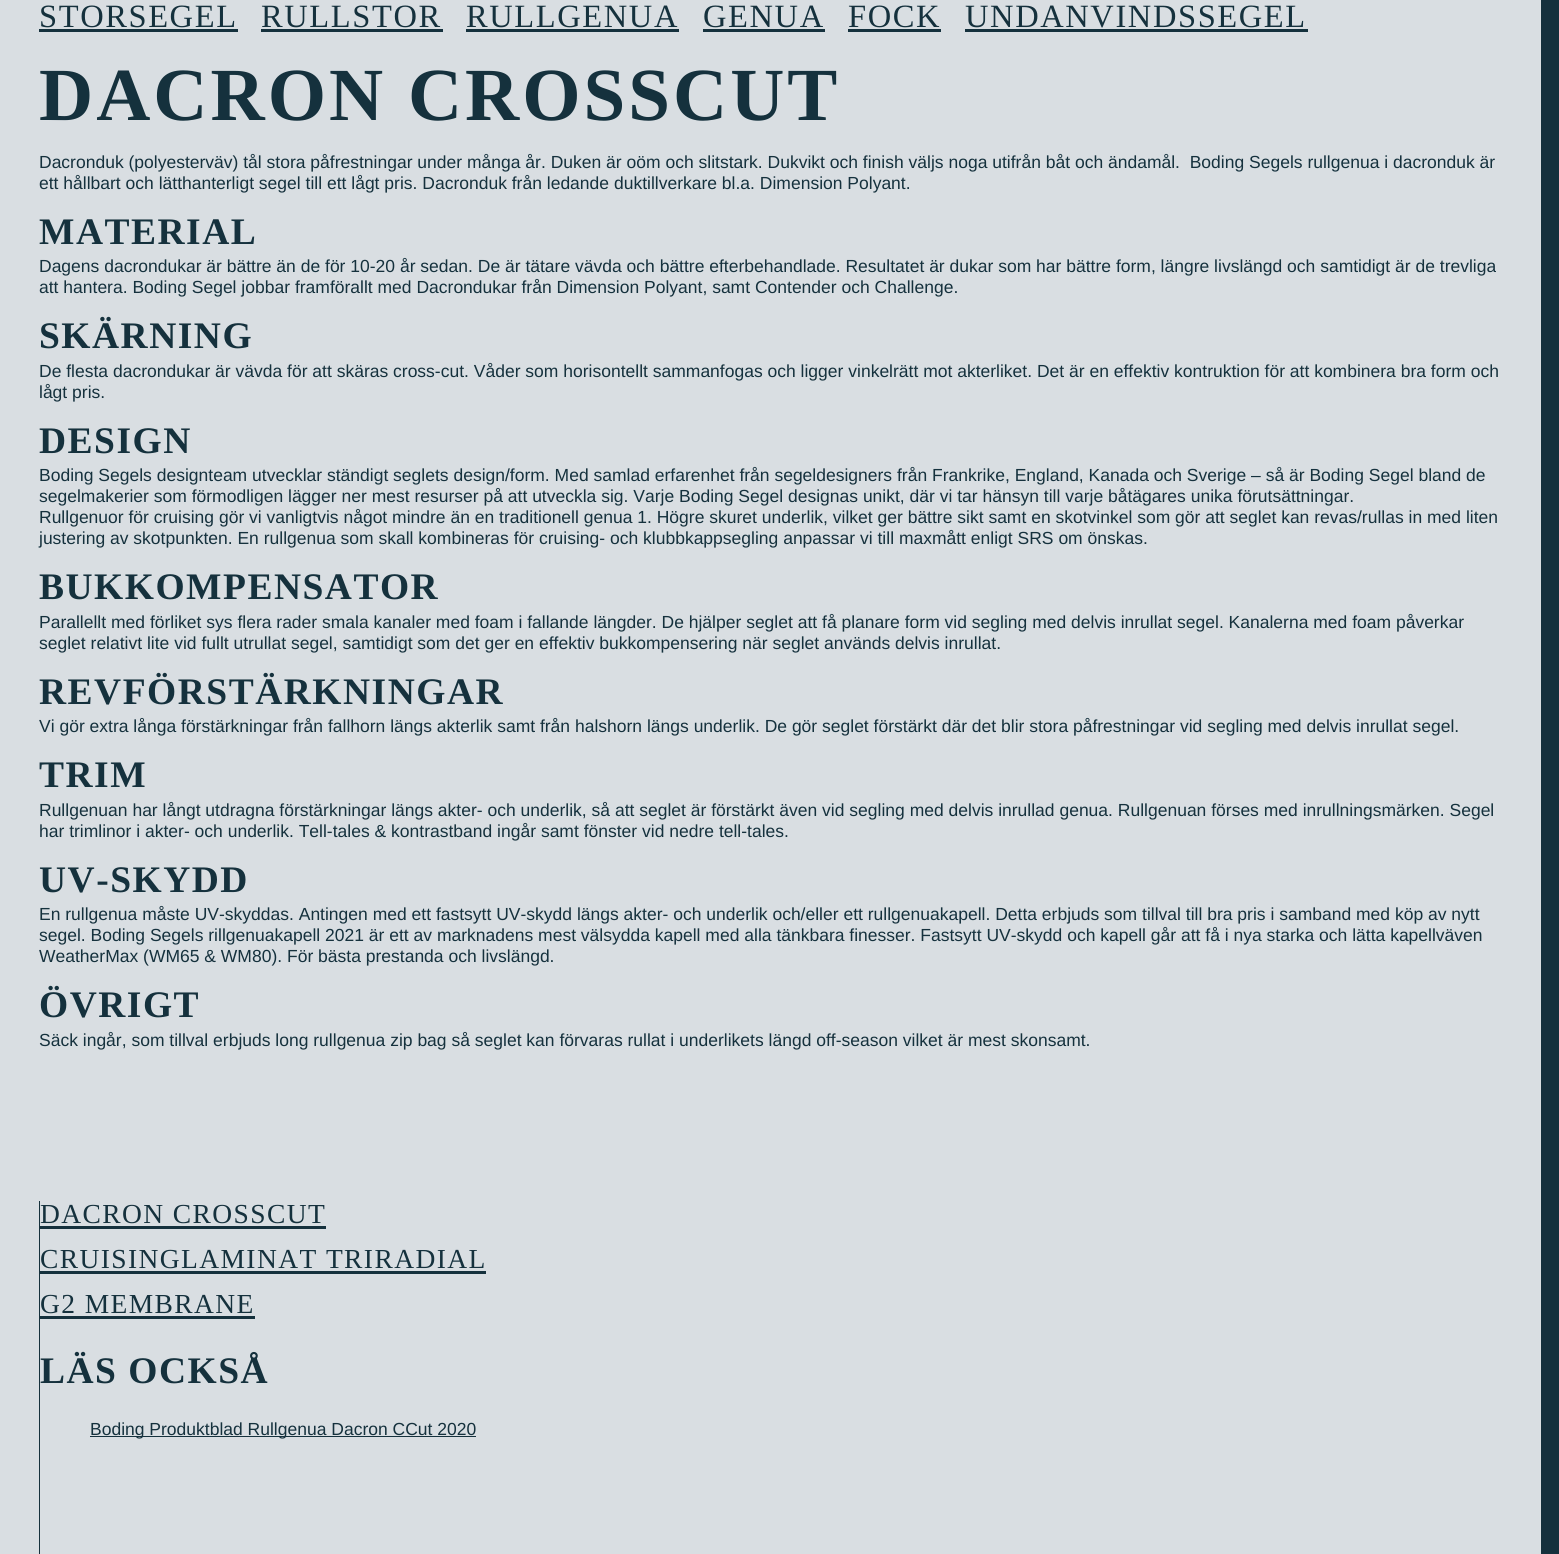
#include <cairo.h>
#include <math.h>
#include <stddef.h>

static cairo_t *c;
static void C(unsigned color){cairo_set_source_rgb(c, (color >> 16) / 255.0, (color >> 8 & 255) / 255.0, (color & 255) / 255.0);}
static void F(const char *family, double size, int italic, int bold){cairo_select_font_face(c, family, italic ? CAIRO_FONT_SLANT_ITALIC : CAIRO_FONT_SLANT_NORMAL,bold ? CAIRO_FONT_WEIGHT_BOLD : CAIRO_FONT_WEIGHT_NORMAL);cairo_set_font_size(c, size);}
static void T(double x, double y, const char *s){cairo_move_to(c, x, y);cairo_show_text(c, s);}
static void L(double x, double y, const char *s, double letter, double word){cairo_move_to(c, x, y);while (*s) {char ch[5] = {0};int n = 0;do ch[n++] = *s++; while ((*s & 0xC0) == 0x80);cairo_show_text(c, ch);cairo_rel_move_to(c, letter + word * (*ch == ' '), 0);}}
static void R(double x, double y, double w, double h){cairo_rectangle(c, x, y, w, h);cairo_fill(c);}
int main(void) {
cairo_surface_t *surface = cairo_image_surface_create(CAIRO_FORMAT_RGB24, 1559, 1554);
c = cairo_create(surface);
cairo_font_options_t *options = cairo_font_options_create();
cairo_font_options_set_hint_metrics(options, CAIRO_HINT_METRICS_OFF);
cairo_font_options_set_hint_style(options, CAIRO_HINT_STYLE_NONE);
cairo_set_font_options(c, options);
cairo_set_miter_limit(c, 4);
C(0x15303d);
cairo_paint(c);
C(0xd9dee2);
R(0,0,1541,1554);
F("Liberation Serif",32.5,0,0);
C(0x15313d);
L(39,27,"STORSEGEL",1.6,0);
R(39,29,199,3);
L(261,27,"RULLSTOR",1.6,0);
R(261,29,182,3);
L(466,27,"RULLGENUA",1.6,0);
R(466,29,213,3);
L(703,27,"GENUA",1.6,0);
R(703,29,122,3);
L(848,27,"FOCK",1.6,0);
R(848,29,93,3);
L(965,27,"UNDANVINDSSEGEL",1.6,0);
R(965,29,343,3);
F("Liberation Serif",75,0,1);
L(39,120,"DACRON CROSSCUT",3,0);
F("Liberation Sans",17.5,0,0);
T(39,168,"Dacronduk (polyesterväv) tål stora påfrestningar under många år. Duken är oöm och slitstark. Dukvikt och finish väljs noga utifrån båt och ändamål.  Boding Segels rullgenua i dacronduk är");
T(39,189,"ett hållbart och lätthanterligt segel till ett lågt pris. Dacronduk från ledande duktillverkare bl.a. Dimension Polyant.");
F("Liberation Serif",37.5,0,1);
L(39,244,"MATERIAL",1.5,0);
F("Liberation Sans",17.5,0,0);
T(39,272,"Dagens dacrondukar är bättre än de för 10-20 år sedan. De är tätare vävda och bättre efterbehandlade. Resultatet är dukar som har bättre form, längre livslängd och samtidigt är de trevliga");
T(39,293,"att hantera. Boding Segel jobbar framförallt med Dacrondukar från Dimension Polyant, samt Contender och Challenge.");
F("Liberation Serif",37.5,0,1);
L(39,348,"SKÄRNING",1.5,0);
F("Liberation Sans",17.5,0,0);
T(39,377,"De flesta dacrondukar är vävda för att skäras cross-cut. Våder som horisontellt sammanfogas och ligger vinkelrätt mot akterliket. Det är en effektiv kontruktion för att kombinera bra form och");
T(39,398,"lågt pris.");
F("Liberation Serif",37.5,0,1);
L(39,453,"DESIGN",1.5,0);
F("Liberation Sans",17.5,0,0);
T(39,481,"Boding Segels designteam utvecklar ständigt seglets design/form. Med samlad erfarenhet från segeldesigners från Frankrike, England, Kanada och Sverige – så är Boding Segel bland de");
T(39,502,"segelmakerier som förmodligen lägger ner mest resurser på att utveckla sig. Varje Boding Segel designas unikt, där vi tar hänsyn till varje båtägares unika förutsättningar.");
T(39,523,"Rullgenuor för cruising gör vi vanligtvis något mindre än en traditionell genua 1. Högre skuret underlik, vilket ger bättre sikt samt en skotvinkel som gör att seglet kan revas/rullas in med liten");
T(39,544,"justering av skotpunkten. En rullgenua som skall kombineras för cruising- och klubbkappsegling anpassar vi till maxmått enligt SRS om önskas.");
F("Liberation Serif",37.5,0,1);
L(39,599,"BUKKOMPENSATOR",1.5,0);
F("Liberation Sans",17.5,0,0);
T(39,628,"Parallellt med förliket sys flera rader smala kanaler med foam i fallande längder. De hjälper seglet att få planare form vid segling med delvis inrullat segel. Kanalerna med foam påverkar");
T(39,649,"seglet relativt lite vid fullt utrullat segel, samtidigt som det ger en effektiv bukkompensering när seglet används delvis inrullat.");
F("Liberation Serif",37.5,0,1);
L(39,704,"REVFÖRSTÄRKNINGAR",1.5,0);
F("Liberation Sans",17.5,0,0);
T(39,732,"Vi gör extra långa förstärkningar från fallhorn längs akterlik samt från halshorn längs underlik. De gör seglet förstärkt där det blir stora påfrestningar vid segling med delvis inrullat segel.");
F("Liberation Serif",37.5,0,1);
L(39,787,"TRIM",1.5,0);
F("Liberation Sans",17.5,0,0);
T(39,816,"Rullgenuan har långt utdragna förstärkningar längs akter- och underlik, så att seglet är förstärkt även vid segling med delvis inrullad genua. Rullgenuan förses med inrullningsmärken. Segel");
T(39,837,"har trimlinor i akter- och underlik. Tell-tales & kontrastband ingår samt fönster vid nedre tell-tales.");
F("Liberation Serif",37.5,0,1);
L(39,892,"UV-SKYDD",1.5,0);
F("Liberation Sans",17.5,0,0);
T(39,920,"En rullgenua måste UV-skyddas. Antingen med ett fastsytt UV-skydd längs akter- och underlik och/eller ett rullgenuakapell. Detta erbjuds som tillval till bra pris i samband med köp av nytt");
T(39,941,"segel. Boding Segels rillgenuakapell 2021 är ett av marknadens mest välsydda kapell med alla tänkbara finesser. Fastsytt UV-skydd och kapell går att få i nya starka och lätta kapellväven");
T(39,962,"WeatherMax (WM65 & WM80). För bästa prestanda och livslängd.");
F("Liberation Serif",37.5,0,1);
L(39,1017,"ÖVRIGT",1.5,0);
F("Liberation Sans",17.5,0,0);
T(39,1046,"Säck ingår, som tillval erbjuds long rullgenua zip bag så seglet kan förvaras rullat i underlikets längd off-season vilket är mest skonsamt.");
C(0x16313c);
R(39,1201,1,353);
F("Liberation Serif",27.5,0,0);
C(0x15313d);
L(40,1223,"DACRON CROSSCUT",1.4,0);
R(40,1226,286,3);
L(40,1268,"CRUISINGLAMINAT TRIRADIAL",1.4,0);
R(40,1271,446,3);
L(40,1313,"G2 MEMBRANE",1.4,0);
R(40,1316,215,3);
F("Liberation Serif",37.5,0,1);
L(40,1383,"LÄS OCKSÅ",1.5,0);
R(90,1436,386,1);
F("Liberation Sans",17.5,0,0);
T(90,1435,"Boding Produktblad Rullgenua Dacron CCut 2020");
cairo_surface_write_to_png(surface, "o.png");
cairo_font_options_destroy(options);
cairo_destroy(c);
cairo_surface_destroy(surface);
return 0;
}
